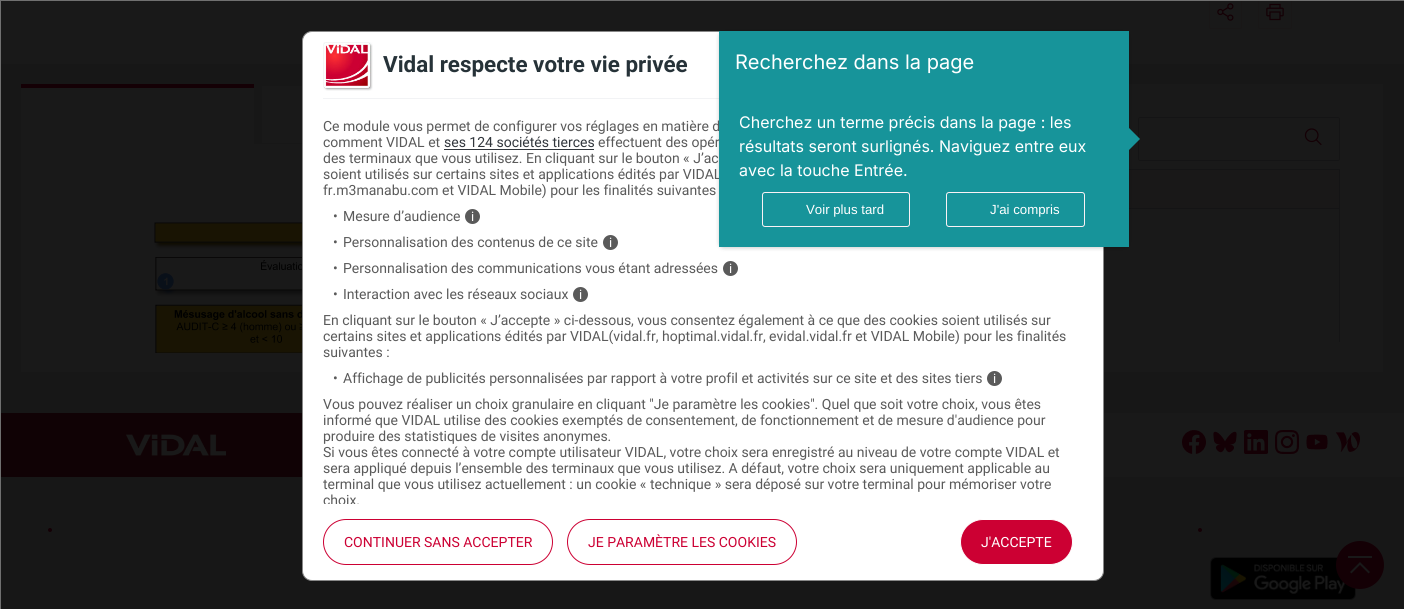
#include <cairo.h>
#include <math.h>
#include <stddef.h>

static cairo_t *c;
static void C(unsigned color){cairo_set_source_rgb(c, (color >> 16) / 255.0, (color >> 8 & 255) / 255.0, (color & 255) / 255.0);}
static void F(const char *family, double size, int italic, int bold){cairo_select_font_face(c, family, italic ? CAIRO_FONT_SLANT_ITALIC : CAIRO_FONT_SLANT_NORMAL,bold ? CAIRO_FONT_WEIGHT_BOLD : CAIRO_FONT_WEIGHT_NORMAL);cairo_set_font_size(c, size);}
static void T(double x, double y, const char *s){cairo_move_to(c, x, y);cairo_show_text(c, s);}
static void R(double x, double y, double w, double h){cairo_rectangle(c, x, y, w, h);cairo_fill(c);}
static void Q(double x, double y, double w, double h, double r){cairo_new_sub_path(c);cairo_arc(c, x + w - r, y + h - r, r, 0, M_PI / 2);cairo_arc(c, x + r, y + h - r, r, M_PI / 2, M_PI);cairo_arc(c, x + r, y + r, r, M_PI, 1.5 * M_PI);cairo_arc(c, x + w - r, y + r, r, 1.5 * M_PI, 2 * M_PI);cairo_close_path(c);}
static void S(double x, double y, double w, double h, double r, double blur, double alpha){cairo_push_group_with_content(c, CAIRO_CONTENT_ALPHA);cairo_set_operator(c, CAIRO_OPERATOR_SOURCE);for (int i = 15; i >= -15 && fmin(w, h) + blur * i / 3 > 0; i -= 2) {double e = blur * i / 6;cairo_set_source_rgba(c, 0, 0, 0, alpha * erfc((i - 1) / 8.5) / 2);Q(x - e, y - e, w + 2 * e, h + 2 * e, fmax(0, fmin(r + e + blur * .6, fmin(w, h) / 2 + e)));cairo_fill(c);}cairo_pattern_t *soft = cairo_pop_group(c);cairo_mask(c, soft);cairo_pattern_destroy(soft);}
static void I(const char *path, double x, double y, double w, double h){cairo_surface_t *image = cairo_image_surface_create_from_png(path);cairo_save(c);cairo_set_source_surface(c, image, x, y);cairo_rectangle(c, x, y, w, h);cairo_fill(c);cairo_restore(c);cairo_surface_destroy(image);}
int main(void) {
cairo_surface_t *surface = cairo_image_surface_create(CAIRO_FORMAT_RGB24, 1404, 609);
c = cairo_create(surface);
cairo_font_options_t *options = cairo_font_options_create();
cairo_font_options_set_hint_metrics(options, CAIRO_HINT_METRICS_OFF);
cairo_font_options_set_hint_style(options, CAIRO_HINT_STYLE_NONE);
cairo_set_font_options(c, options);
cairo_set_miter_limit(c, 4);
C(0xececee);
cairo_paint(c);
C(0xffffff);
R(1,1,1403,63);
Q(1209.5,-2.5,32,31,1.5);
C(0xfae6eb);
cairo_set_line_width(c,1);
cairo_stroke(c);
I("1.png",1217,3,17,18);
Q(1258.5,-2.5,33,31,1.5);
cairo_stroke(c);
I("2.png",1266,3,18,18);
C(0xffffff);
R(21,88,233,56);
C(0xcc0033);
R(21,84,233,4);
C(0xffffff);
R(262,86,40,57);
C(0xe9eaed);
R(262,143,40,1);
C(0xffffff);
R(21,144,281,228);
I("3.png",154,222,148,131);
R(1104,84,279,288);
Q(1138.5,117.5,201,43,1.5);
C(0xceced4);
cairo_stroke(c);
I("4.png",1304,128,18,18);
C(0xfaf2f5);
R(1129,170,210,38);
cairo_rectangle(c,780.5,169.5,559,39);
C(0xceced4);
cairo_stroke(c);
R(1339,209,1,133);
C(0xffffff);
R(1104,413,300,64);
C(0xa81830);
R(1,413,301,64);
I("6.png",126,434,100,22);
I("7.png",1182,430,24,24);
I("8.png",1213,431,24,22);
I("9.png",1244,430,24,24);
I("10.png",1275,430,24,24);
I("11.png",1306,434,22,16);
I("12.png",1336,432,24,20);
C(0xcc0033);
cairo_arc(c,50,530,2,0,2 * M_PI);
cairo_fill(c);
cairo_arc(c,1200,530,2,0,2 * M_PI);
cairo_fill(c);
I("13.png",1210,557,146,43);
cairo_arc(c,1360,565,24,0,2 * M_PI);
cairo_fill(c);
I("14.png",1348,556,24,18);
cairo_set_source_rgba(c,0,0,0,0.9);
cairo_rectangle(c,.5,.5,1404,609);
cairo_fill_preserve(c);
C(0x707070);
cairo_stroke(c);
C(0xffffff);
Q(302.5,31.5,801,549,9.5);
cairo_fill_preserve(c);
C(0x888888);
cairo_stroke(c);
C(0xf2f3f5);
R(323,98,396,1);
C(0x000000);
S(719,32,410,216,5,2,.2);
C(0x17949a);
cairo_new_path(c);
cairo_move_to(c,1128.5,127.5);
cairo_line_to(c,1140,139);
cairo_line_to(c,1128.5,150.5);
cairo_line_to(c,1117,139);
cairo_close_path(c);
cairo_fill(c);
F("Roboto",14,0,0);
C(0x5a5a5a);
T(323,131,"Ce module vous permet de configurer vos réglages en matière d");
T(323,179,"soient utilisés sur certains sites et applications édités par VIDAL");
C(0x17949a);
R(719,31,410,216);
F("Inter",20,0,0);
C(0xffffff);
T(735,69,"Recherchez dans la page");
F("Inter",16,0,0);
T(739,128,"Cherchez un terme précis dans la page : les");
T(739,152,"résultats seront surlignés. Naviguez entre eux");
T(739,176,"avec la touche Entrée.");
Q(762.5,192.5,147,34,2.5);
C(0xfaf2f5);
cairo_stroke(c);
F("Liberation Sans",13.25,0,0);
C(0xffffff);
T(806,214,"Voir plus tard");
Q(946.5,192.5,138,34,2.5);
C(0xfaf2f5);
cairo_stroke(c);
C(0xffffff);
T(990,214,"J'ai compris");
I("5.png",323,42,50,49);
F("Roboto",22.4,0,1);
C(0x263238);
T(383,72,"Vidal respecte votre vie privée");
F("Roboto",14,0,0);
C(0x5a5a5a);
T(323,147,"comment VIDAL et");
C(0x31363c);
T(444,147,"ses 124 sociétés tierces");
R(444,149,150,1);
C(0x5a5a5a);
T(598,147,"effectuent des opér");
T(323,163,"des terminaux que vous utilisez. En cliquant sur le bouton « J’ac");
T(323,195,"fr.m3manabu.com et VIDAL Mobile) pour les finalités suivantes");
T(333,221,"•");
T(343,221,"Mesure d’audience");
cairo_new_path(c);
cairo_arc(c,472.5,216.5,7.5,0,2 * M_PI);
cairo_fill(c);
F("Roboto",13,0,0);
C(0xffffff);
T(471,221,"i");
F("Roboto",14,0,0);
C(0x5a5a5a);
T(333,247,"•");
T(343,247,"Personnalisation des contenus de ce site");
cairo_new_path(c);
cairo_arc(c,610.5,242.5,7.5,0,2 * M_PI);
cairo_fill(c);
F("Roboto",13,0,0);
C(0xffffff);
T(609,247,"i");
F("Roboto",14,0,0);
C(0x5a5a5a);
T(333,273,"•");
T(343,273,"Personnalisation des communications vous étant adressées");
cairo_new_path(c);
cairo_arc(c,730.5,268.5,7.5,0,2 * M_PI);
cairo_fill(c);
F("Roboto",13,0,0);
C(0xffffff);
T(729,273,"i");
F("Roboto",14,0,0);
C(0x5a5a5a);
T(333,299,"•");
T(343,299,"Interaction avec les réseaux sociaux");
cairo_new_path(c);
cairo_arc(c,580.5,294.5,7.5,0,2 * M_PI);
cairo_fill(c);
F("Roboto",13,0,0);
C(0xffffff);
T(579,299,"i");
F("Roboto",14,0,0);
C(0x5a5a5a);
T(323,325,"En cliquant sur le bouton « J’accepte » ci-dessous, vous consentez également à ce que des cookies soient utilisés sur");
T(323,341,"certains sites et applications édités par VIDAL(vidal.fr, hoptimal.vidal.fr, evidal.vidal.fr et VIDAL Mobile) pour les finalités");
T(323,357,"suivantes :");
T(333,383,"•");
T(343,383,"Affichage de publicités personnalisées par rapport à votre profil et activités sur ce site et des sites tiers");
cairo_new_path(c);
cairo_arc(c,994.5,378.5,7.5,0,2 * M_PI);
cairo_fill(c);
F("Roboto",13,0,0);
C(0xffffff);
T(993,383,"i");
F("Roboto",14,0,0);
C(0x5a5a5a);
T(323,409,"Vous pouvez réaliser un choix granulaire en cliquant \"Je paramètre les cookies\". Quel que soit votre choix, vous êtes");
T(323,425,"informé que VIDAL utilise des cookies exemptés de consentement, de fonctionnement et de mesure d'audience pour");
T(323,441,"produire des statistiques de visites anonymes.");
T(323,457,"Si vous êtes connecté à votre compte utilisateur VIDAL, votre choix sera enregistré au niveau de votre compte VIDAL et");
T(323,473,"sera appliqué depuis l’ensemble des terminaux que vous utilisez. A défaut, votre choix sera uniquement applicable au");
T(323,489,"terminal que vous utilisez actuellement : un cookie « technique » sera déposé sur votre terminal pour mémoriser votre");
cairo_save(c);
cairo_rectangle(c,303,32,800,472);
cairo_clip(c);
T(323,505,"choix.");
cairo_restore(c);
Q(323.5,519.5,229,45,22.5);
C(0xcc0033);
cairo_stroke(c);
T(344,547,"CONTINUER SANS ACCEPTER");
Q(567.5,519.5,229,45,22.5);
cairo_stroke(c);
T(588,547,"JE PARAMÈTRE LES COOKIES");
Q(960.5,519.5,112,45,22.5);
cairo_fill_preserve(c);
C(0xffffff);
cairo_stroke(c);
T(981,547,"J'ACCEPTE");
cairo_surface_write_to_png(surface, "o.png");
cairo_font_options_destroy(options);
cairo_destroy(c);
cairo_surface_destroy(surface);
return 0;
}
